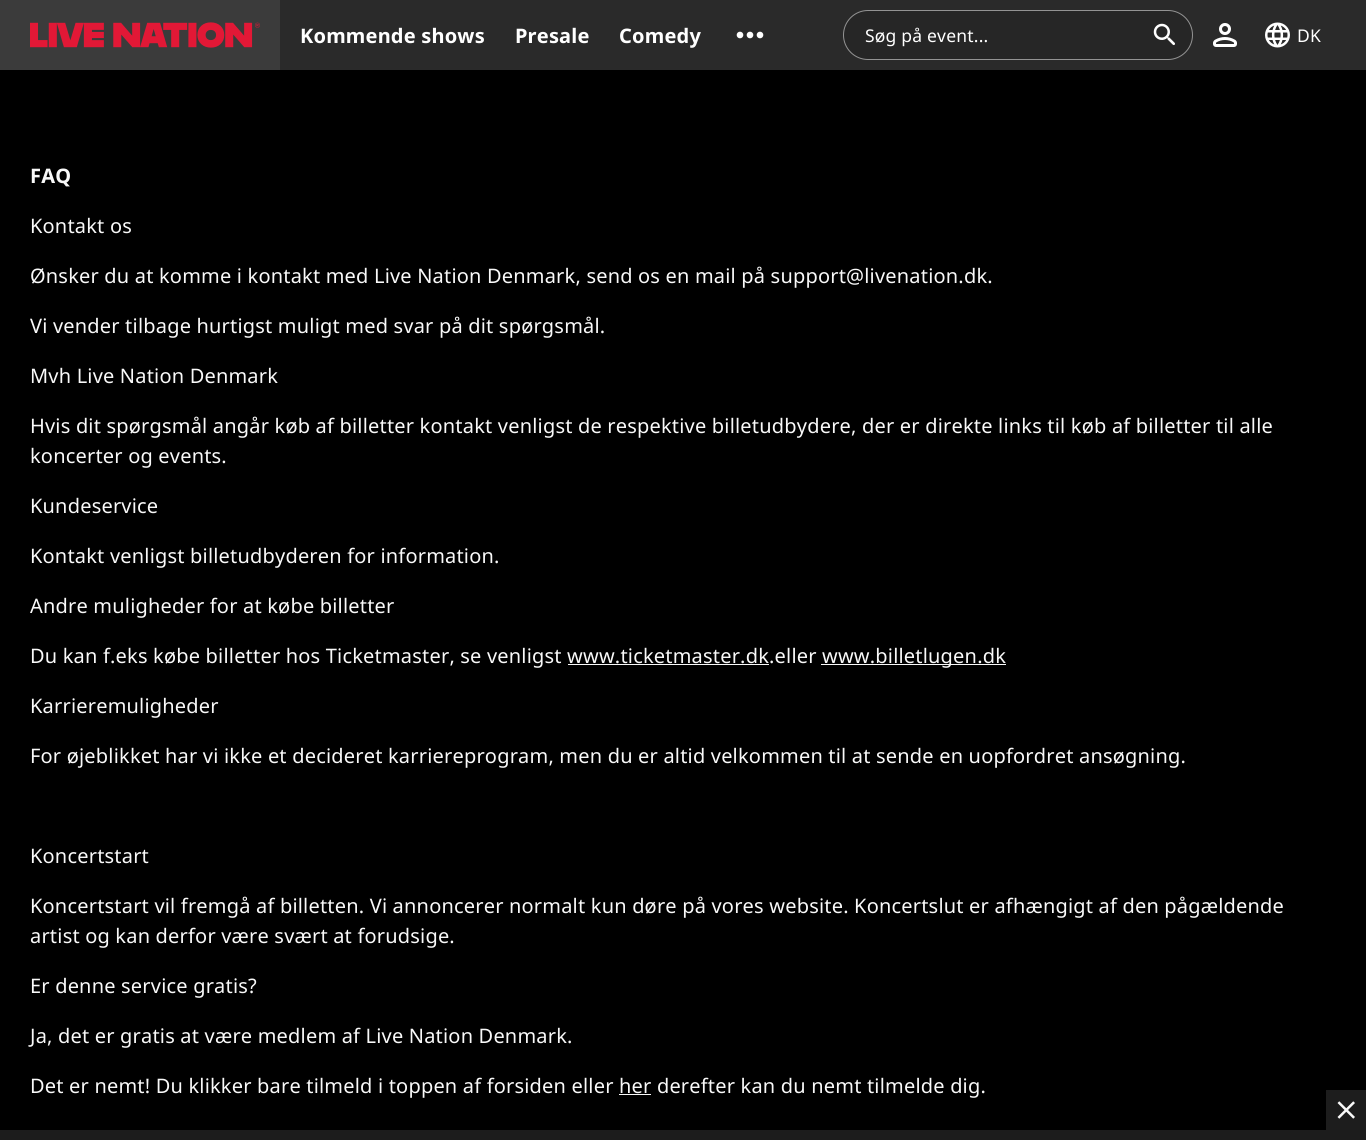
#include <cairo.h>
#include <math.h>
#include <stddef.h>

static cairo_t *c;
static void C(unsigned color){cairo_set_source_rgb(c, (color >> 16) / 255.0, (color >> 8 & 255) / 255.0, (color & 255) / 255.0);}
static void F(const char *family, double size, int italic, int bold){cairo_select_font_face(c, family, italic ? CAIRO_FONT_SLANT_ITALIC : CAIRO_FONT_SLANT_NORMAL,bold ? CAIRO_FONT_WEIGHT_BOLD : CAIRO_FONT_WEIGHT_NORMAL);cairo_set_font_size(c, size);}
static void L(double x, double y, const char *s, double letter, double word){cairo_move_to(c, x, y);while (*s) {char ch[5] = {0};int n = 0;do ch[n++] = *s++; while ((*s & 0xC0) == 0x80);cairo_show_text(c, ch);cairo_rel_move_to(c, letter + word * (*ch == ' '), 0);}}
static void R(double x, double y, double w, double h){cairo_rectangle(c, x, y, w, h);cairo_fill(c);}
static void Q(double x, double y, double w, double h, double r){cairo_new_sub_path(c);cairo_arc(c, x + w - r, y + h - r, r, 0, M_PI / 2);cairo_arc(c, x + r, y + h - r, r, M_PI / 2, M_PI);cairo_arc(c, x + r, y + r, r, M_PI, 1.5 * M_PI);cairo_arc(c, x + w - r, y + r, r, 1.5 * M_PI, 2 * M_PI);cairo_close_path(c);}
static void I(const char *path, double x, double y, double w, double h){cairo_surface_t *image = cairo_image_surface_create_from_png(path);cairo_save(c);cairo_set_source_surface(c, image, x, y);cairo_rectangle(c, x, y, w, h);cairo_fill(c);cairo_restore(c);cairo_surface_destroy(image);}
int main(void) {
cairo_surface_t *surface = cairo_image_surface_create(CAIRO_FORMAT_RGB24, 1366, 1140);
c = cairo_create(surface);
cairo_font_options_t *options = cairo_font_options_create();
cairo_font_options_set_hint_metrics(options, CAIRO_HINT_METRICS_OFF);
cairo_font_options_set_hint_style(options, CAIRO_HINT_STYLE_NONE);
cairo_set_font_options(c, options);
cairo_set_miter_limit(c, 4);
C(0x000000);
cairo_paint(c);
C(0x2a2a2a);
R(280,0,1086,70);
C(0x3b3b3b);
R(0,0,280,70);
I("1.png",30,22,230,26);
F("Noto Sans",20,0,1);
C(0xffffff);
L(300,43,"Kommende shows",.19,0);
L(515,43,"Presale",.19,0);
L(619,43,"Comedy",.19,0);
I("2.png",736,31,28,8);
C(0x262626);
Q(843.5,10.5,349,49,24.5);
cairo_fill_preserve(c);
C(0x939393);
cairo_set_line_width(c,1);
cairo_stroke(c);
F("Noto Sans",17.5,0,0);
C(0xffffff);
L(865,42,"Søg på event...",.2,0);
I("3.png",1153,23,22,23);
I("4.png",1213,23,24,24);
I("5.png",1265,22,25,26);
L(1297,42,"DK",.2,0);
F("Noto Sans",20,0,1);
C(0xf9f9f9);
L(30,183,"FAQ",.19,0);
F("Noto Sans",20,0,0);
L(30,233,"Kontakt os",.19,0);
L(30,283,"Ønsker du at komme i kontakt med Live Nation Denmark, send os en mail på support@livenation.dk.",.19,0);
L(30,333,"Vi vender tilbage hurtigst muligt med svar på dit spørgsmål.",.19,0);
L(30,383,"Mvh Live Nation Denmark",.19,0);
L(30,433,"Hvis dit spørgsmål angår køb af billetter kontakt venligst de respektive billetudbydere, der er direkte links til køb af billetter til alle",.19,0);
L(30,463,"koncerter og events.",.19,0);
L(30,513,"Kundeservice",.19,0);
L(30,563,"Kontakt venligst billetudbyderen for information.",.19,0);
L(30,613,"Andre muligheder for at købe billetter",.19,0);
L(30,663,"Du kan f.eks købe billetter hos Ticketmaster, se venligst www.ticketmaster.dk.eller",.19,0);
R(568,664,201,1);
R(821,664,185,1);
L(822,663,"www.billetlugen.dk",.19,0);
L(30,713,"Karrieremuligheder",.19,0);
L(30,763,"For øjeblikket har vi ikke et decideret karriereprogram, men du er altid velkommen til at sende en uopfordret ansøgning.",.19,0);
L(30,863,"Koncertstart",.19,0);
L(30,913,"Koncertstart vil fremgå af billetten. Vi annoncerer normalt kun døre på vores website. Koncertslut er afhængigt af den pågældende",.19,0);
L(30,943,"artist og kan derfor være svært at forudsige.",.19,0);
L(30,993,"Er denne service gratis?",.19,0);
L(30,1043,"Ja, det er gratis at være medlem af Live Nation Denmark.",.19,0);
L(30,1093,"Det er nemt! Du klikker bare tilmeld i toppen af forsiden eller her derefter kan du nemt tilmelde dig.",.19,0);
R(619,1094,32,1);
cairo_set_source_rgba(c,0.125,0.125,0.125,0.9);
R(0,1130,1366,10);
C(0x1d1d1d);
R(1326,1090,40,40);
I("6.png",1337,1101,18,18);
cairo_surface_write_to_png(surface, "o.png");
cairo_font_options_destroy(options);
cairo_destroy(c);
cairo_surface_destroy(surface);
return 0;
}
